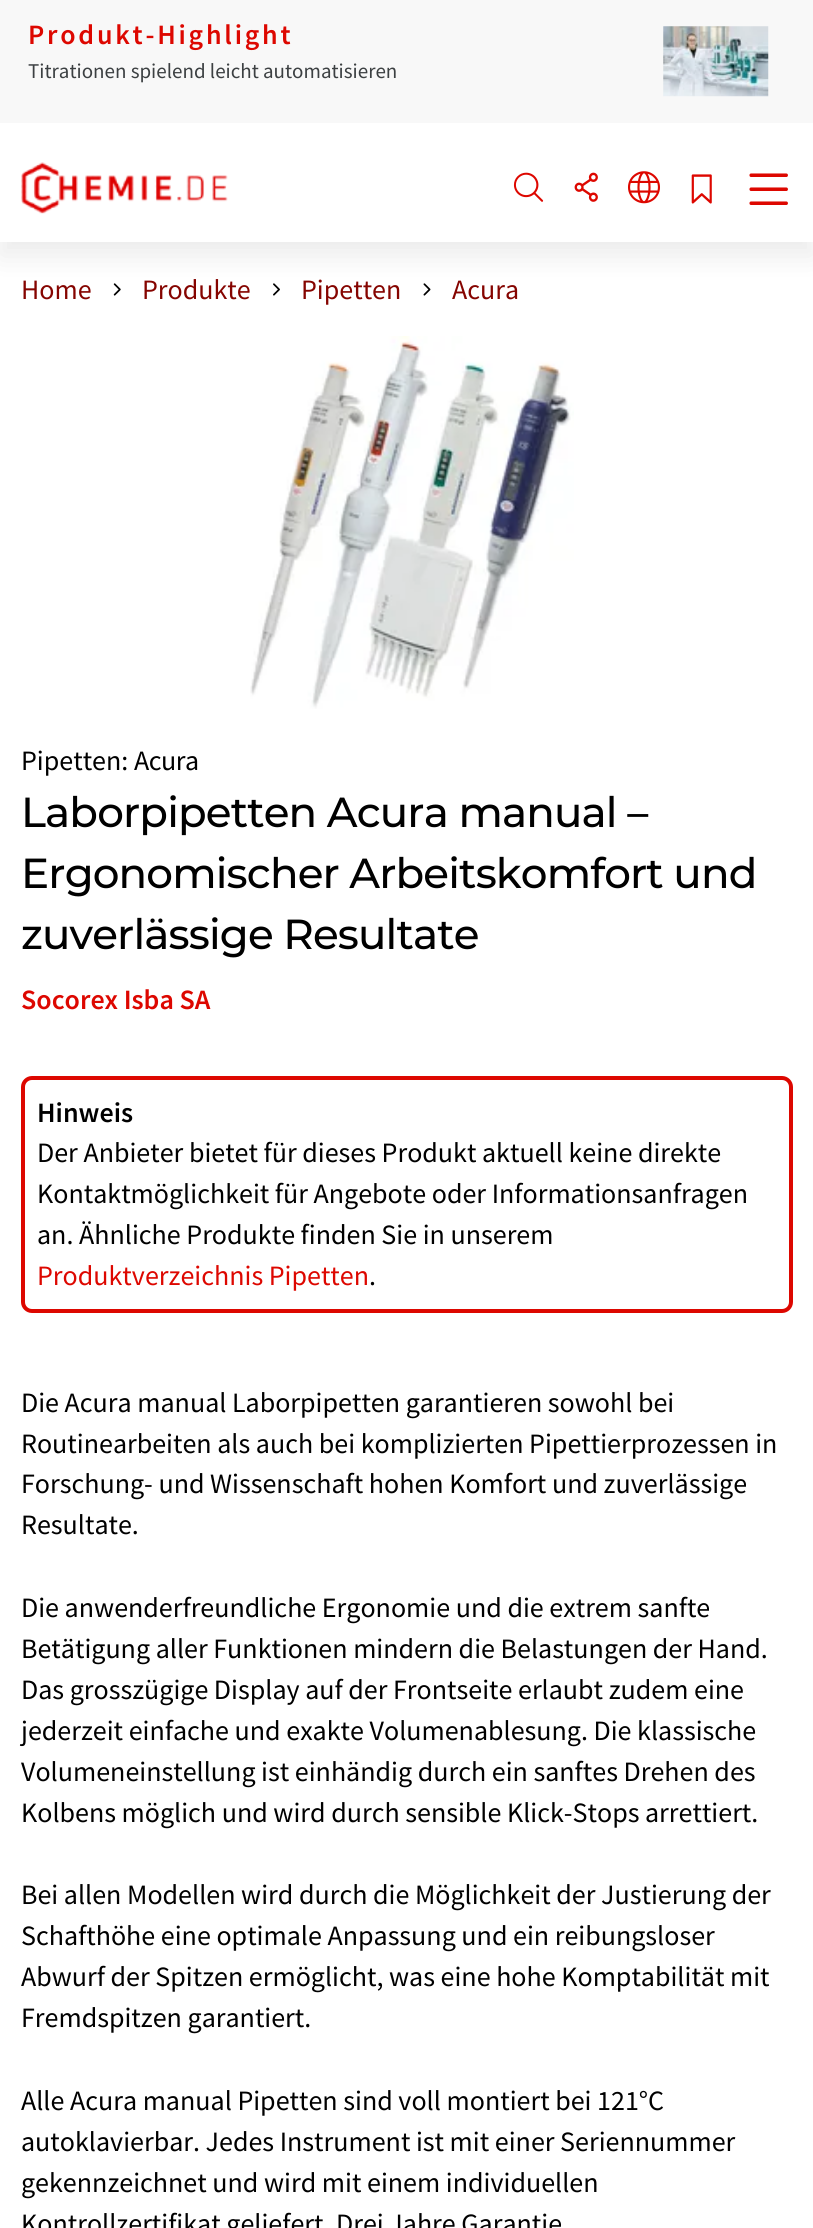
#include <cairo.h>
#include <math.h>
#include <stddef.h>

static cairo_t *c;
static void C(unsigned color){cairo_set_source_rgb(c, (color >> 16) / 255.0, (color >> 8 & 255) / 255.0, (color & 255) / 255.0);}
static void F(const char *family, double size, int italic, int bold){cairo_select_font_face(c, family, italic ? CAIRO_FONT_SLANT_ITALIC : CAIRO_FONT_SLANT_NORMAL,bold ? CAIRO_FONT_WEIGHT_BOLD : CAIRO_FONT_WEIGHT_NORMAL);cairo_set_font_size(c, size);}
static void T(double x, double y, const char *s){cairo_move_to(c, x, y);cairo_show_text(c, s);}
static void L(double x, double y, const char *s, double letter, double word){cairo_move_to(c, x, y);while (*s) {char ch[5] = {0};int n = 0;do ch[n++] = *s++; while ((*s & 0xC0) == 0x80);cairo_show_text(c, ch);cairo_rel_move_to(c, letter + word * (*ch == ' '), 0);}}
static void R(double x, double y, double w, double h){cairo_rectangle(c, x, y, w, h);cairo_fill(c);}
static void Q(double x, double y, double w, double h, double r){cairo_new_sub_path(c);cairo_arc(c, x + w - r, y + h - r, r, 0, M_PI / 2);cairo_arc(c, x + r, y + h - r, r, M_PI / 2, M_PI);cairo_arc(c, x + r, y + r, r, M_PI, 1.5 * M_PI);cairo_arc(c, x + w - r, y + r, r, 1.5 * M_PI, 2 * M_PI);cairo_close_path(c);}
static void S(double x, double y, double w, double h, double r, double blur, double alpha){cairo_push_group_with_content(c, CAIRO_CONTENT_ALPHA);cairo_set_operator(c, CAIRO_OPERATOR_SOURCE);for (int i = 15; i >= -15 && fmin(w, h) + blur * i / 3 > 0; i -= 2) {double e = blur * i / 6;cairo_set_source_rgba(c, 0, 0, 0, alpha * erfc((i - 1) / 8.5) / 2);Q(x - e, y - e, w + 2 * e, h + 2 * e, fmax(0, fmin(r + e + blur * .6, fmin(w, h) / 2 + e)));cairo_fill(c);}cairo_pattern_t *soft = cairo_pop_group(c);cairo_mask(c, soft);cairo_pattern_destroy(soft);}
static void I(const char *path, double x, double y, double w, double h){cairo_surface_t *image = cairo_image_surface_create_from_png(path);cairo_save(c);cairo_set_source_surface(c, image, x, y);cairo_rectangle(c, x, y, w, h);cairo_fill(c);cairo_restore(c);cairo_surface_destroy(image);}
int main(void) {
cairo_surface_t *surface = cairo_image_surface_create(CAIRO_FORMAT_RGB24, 813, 2228);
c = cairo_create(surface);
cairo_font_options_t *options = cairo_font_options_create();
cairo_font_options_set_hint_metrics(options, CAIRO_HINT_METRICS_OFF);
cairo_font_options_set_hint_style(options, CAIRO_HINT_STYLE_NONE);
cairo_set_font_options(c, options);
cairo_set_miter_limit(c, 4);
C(0xffffff);
cairo_paint(c);
I("8.png",113,283,8,13);
I("9.png",273,283,7,13);
I("10.png",423,283,8,13);
C(0x000000);
S(0,14,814,242,0,14,.08);
C(0xffffff);
R(0,123,813,119);
C(0xf8f8f8);
R(0,0,813,123);
F("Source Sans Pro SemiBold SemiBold",28,0,0);
C(0xdd0700);
L(28,44,"Produkt-Highlight",2.75,0);
F("Source Sans Pro",21,0,0);
C(0x3c4042);
T(28,78,"Titrationen spielend leicht automatisieren");
I("1.png",663,26,106,71);
I("2.png",21,162,207,52);
I("3.png",513,172,31,30);
I("4.png",574,172,24,30);
I("5.png",628,171,32,33);
I("6.png",691,174,21,30);
I("7.png",749,173,39,32);
F("Source Sans Pro",28,0,0);
C(0x850400);
T(21,299,"Home");
T(142,299,"Produkte");
T(301,299,"Pipetten");
T(452,299,"Acura");
I("11.png",250,336,324,373);
C(0x000000);
T(21,770,"Pipetten:");
L(134,770,"Acura",-.5,0);
F("Montserrat Thin",42,0,0);
L(21,827,"Laborpipetten Acura manual –",-.85,0);
L(21,888,"Ergonomischer Arbeitskomfort und",-.85,0);
L(21,949,"zuverlässige Resultate",-.85,0);
F("Source Sans Pro SemiBold SemiBold",28,0,0);
C(0xdd0700);
T(21,1009,"Socorex Isba SA");
Q(23,1078,768,233,9);
cairo_set_line_width(c,4);
cairo_stroke(c);
C(0x000000);
T(37,1122,"Hinweis");
F("Source Sans Pro",28,0,0);
T(37,1162,"Der Anbieter bietet für dieses Produkt aktuell keine direkte");
T(37,1203,"Kontaktmöglichkeit für Angebote oder Informationsanfragen");
T(37,1244,"an. Ähnliche Produkte finden Sie in unserem");
C(0xdd0700);
T(37,1285,"Produktverzeichnis Pipetten");
C(0x000000);
T(369,1285,".");
T(21,1412,"Die Acura manual Laborpipetten garantieren sowohl bei");
T(21,1453,"Routinearbeiten als auch bei komplizierten Pipettierprozessen in");
T(21,1493,"Forschung- und Wissenschaft hohen Komfort und zuverlässige");
T(21,1534,"Resultate.");
T(21,1617,"Die anwenderfreundliche Ergonomie und die extrem sanfte");
T(21,1658,"Betätigung aller Funktionen mindern die Belastungen der Hand.");
T(21,1699,"Das grosszügige Display auf der Frontseite erlaubt zudem eine");
T(21,1740,"jederzeit einfache und exakte Volumenablesung. Die klassische");
T(21,1781,"Volumeneinstellung ist einhändig durch ein sanftes Drehen des");
T(21,1822,"Kolbens möglich und wird durch sensible Klick-Stops arrettiert.");
T(21,1904,"Bei allen Modellen wird durch die Möglichkeit der Justierung der");
T(21,1945,"Schafthöhe eine optimale Anpassung und ein reibungsloser");
T(21,1986,"Abwurf der Spitzen ermöglicht, was eine hohe Komptabilität mit");
T(21,2027,"Fremdspitzen garantiert.");
T(21,2110,"Alle Acura manual Pipetten sind voll montiert bei 121°C");
T(21,2151,"autoklavierbar. Jedes Instrument ist mit einer Seriennummer");
T(21,2192,"gekennzeichnet und wird mit einem individuellen");
T(21,2233,"Kontrollzertifikat geliefert. Drei Jahre Garantie");
cairo_surface_write_to_png(surface, "o.png");
cairo_font_options_destroy(options);
cairo_destroy(c);
cairo_surface_destroy(surface);
return 0;
}
